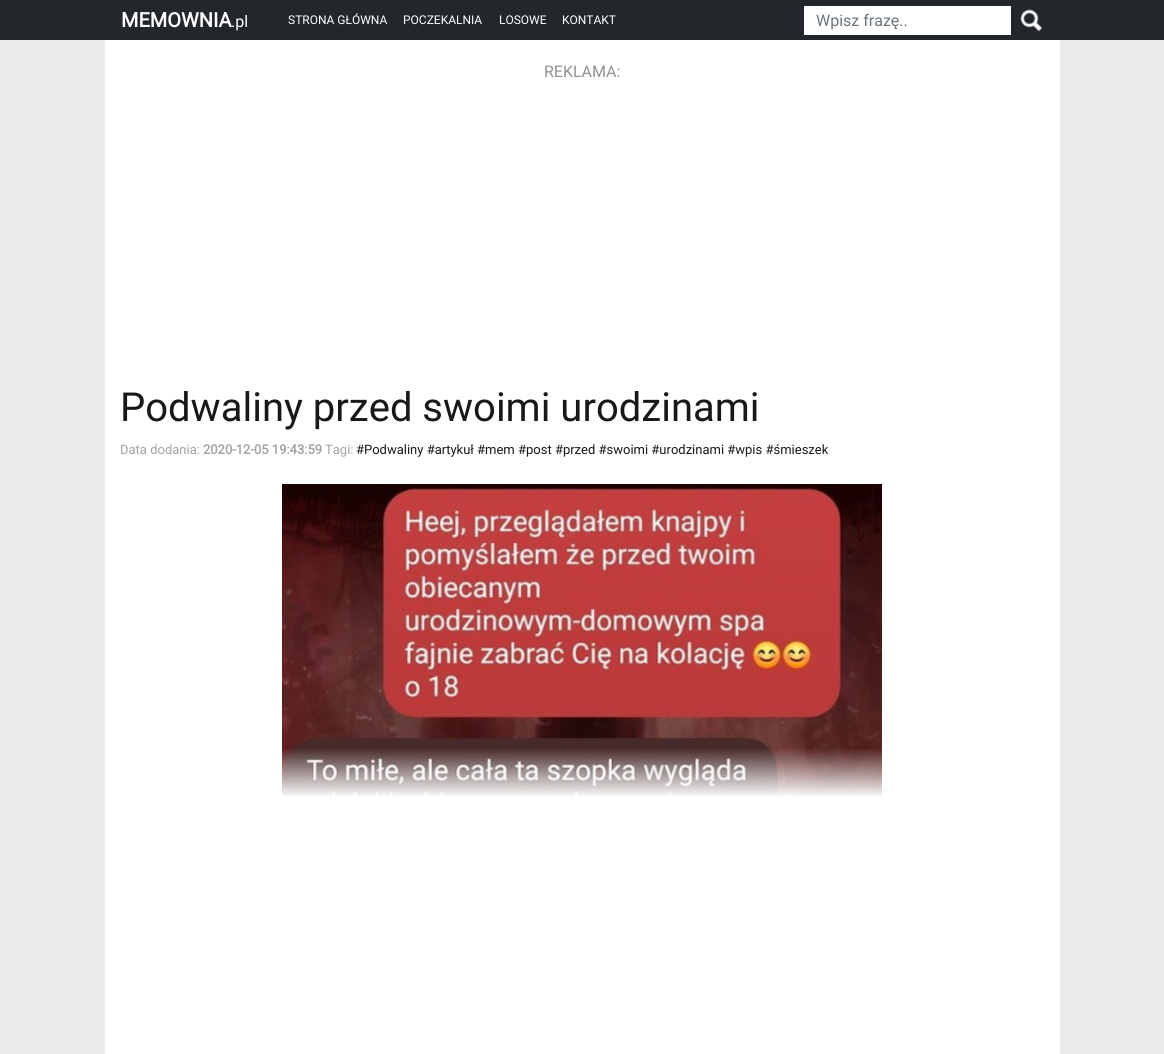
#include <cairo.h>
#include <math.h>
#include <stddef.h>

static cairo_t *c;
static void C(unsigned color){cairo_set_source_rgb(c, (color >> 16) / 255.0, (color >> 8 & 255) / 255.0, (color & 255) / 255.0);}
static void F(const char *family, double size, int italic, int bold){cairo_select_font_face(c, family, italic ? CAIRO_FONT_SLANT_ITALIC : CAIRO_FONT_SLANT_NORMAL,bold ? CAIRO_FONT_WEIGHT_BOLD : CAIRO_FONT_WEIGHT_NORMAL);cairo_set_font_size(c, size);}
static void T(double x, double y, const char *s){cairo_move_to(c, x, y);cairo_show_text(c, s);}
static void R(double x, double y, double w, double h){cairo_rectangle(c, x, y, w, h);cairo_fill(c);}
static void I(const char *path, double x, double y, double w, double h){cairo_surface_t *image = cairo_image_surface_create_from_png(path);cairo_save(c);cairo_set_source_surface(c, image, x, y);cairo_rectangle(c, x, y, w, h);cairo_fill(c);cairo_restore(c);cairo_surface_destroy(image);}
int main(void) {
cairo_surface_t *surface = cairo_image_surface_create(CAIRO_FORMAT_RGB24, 1164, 1054);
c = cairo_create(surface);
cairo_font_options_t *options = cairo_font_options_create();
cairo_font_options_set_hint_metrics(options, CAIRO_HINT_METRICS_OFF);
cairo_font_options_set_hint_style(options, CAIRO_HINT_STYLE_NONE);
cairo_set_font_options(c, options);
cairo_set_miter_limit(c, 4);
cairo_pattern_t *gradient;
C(0xebebeb);
cairo_paint(c);
C(0x23272b);
R(0,0,1164,40);
F("Roboto",20,0,1);
C(0xffffff);
T(121,27,"MEMOWNIA");
F("Roboto",16,0,0);
T(231,27,".pl");
F("Roboto",12,0,0);
T(288,24,"STRONA GŁÓWNA");
T(403,24,"POCZEKALNIA");
T(499,24,"LOSOWE");
T(562,24,"KONTAKT");
R(804,6,207,29);
F("Roboto",16,0,0);
C(0x6c757d);
T(816,26,"Wpisz frazę..");
I("1.png",1020,9,23,23);
C(0xffffff);
R(105,40,955,1014);
C(0x909294);
T(544,77,"REKLAMA:");
F("Roboto",40,0,0);
C(0x181818);
T(120,421,"Podwaliny przed swoimi urodzinami");
F("Roboto",13,0,0);
C(0xa2a2a2);
T(120,454,"Data dodania:");
F("Roboto",13,0,1);
T(203,454,"2020-12-05 19:43:59");
F("Roboto",13,0,0);
T(325,454,"Tagi:");
C(0x181818);
T(356,454,"#Podwaliny #artykuł #mem #post #przed #swoimi #urodzinami #wpis #śmieszek");
I("2.png",282,484,600,312);
gradient = cairo_pattern_create_linear(583,748,583,798);
cairo_pattern_add_color_stop_rgba(gradient,0,1,1,1,0);
cairo_pattern_add_color_stop_rgba(gradient,1,1,1,1,1);
cairo_set_source(c,gradient);
cairo_pattern_destroy(gradient);
R(282,749,600,47);
cairo_surface_write_to_png(surface, "o.png");
cairo_font_options_destroy(options);
cairo_destroy(c);
cairo_surface_destroy(surface);
return 0;
}
